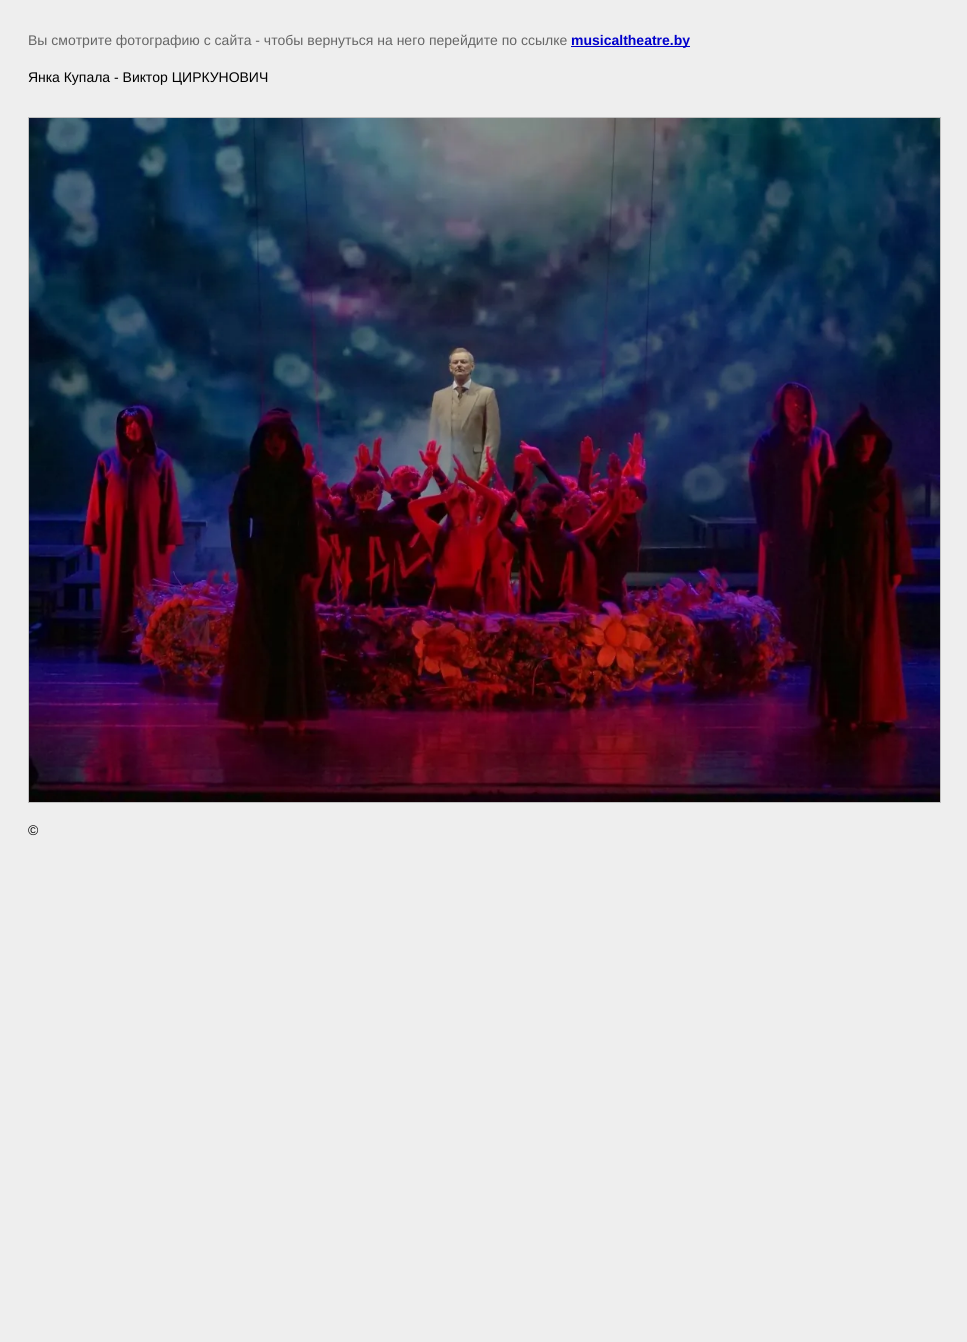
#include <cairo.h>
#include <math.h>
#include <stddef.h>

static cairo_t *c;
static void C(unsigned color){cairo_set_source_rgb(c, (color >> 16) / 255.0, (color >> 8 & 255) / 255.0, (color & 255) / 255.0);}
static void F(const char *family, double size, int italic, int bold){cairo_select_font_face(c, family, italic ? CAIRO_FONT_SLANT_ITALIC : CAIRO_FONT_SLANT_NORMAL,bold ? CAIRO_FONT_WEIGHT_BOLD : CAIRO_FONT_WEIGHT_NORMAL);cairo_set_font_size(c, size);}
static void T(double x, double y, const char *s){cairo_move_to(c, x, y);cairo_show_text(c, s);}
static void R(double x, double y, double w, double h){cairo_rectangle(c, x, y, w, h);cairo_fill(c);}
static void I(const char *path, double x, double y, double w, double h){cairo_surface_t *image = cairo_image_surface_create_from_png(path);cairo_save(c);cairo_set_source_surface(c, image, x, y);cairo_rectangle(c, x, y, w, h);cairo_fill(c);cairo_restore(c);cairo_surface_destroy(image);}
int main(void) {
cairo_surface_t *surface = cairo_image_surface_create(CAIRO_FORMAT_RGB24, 967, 1342);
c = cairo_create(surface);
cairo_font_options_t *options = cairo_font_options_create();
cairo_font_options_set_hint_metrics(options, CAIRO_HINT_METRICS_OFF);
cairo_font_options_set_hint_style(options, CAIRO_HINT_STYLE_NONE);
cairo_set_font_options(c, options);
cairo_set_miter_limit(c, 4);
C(0xeeeeee);
cairo_paint(c);
F("Liberation Sans",14,0,0);
C(0x666666);
T(28,45,"Вы смотрите фотографию с сайта - чтобы вернуться на него перейдите по ссылке");
C(0x0000cc);
R(571,46,119,1);
F("Liberation Sans",14,0,1);
T(571,45,"musicaltheatre.by");
F("Liberation Sans",14,0,0);
C(0x000000);
T(28,82,"Янка Купала - Виктор ЦИРКУНОВИЧ");
cairo_rectangle(c,28.5,117.5,912,685);
C(0xc0c0c0);
cairo_set_line_width(c,1);
cairo_stroke(c);
I("1.png",29,118,911,684);
C(0x000000);
T(28,835,"©");
cairo_surface_write_to_png(surface, "o.png");
cairo_font_options_destroy(options);
cairo_destroy(c);
cairo_surface_destroy(surface);
return 0;
}
